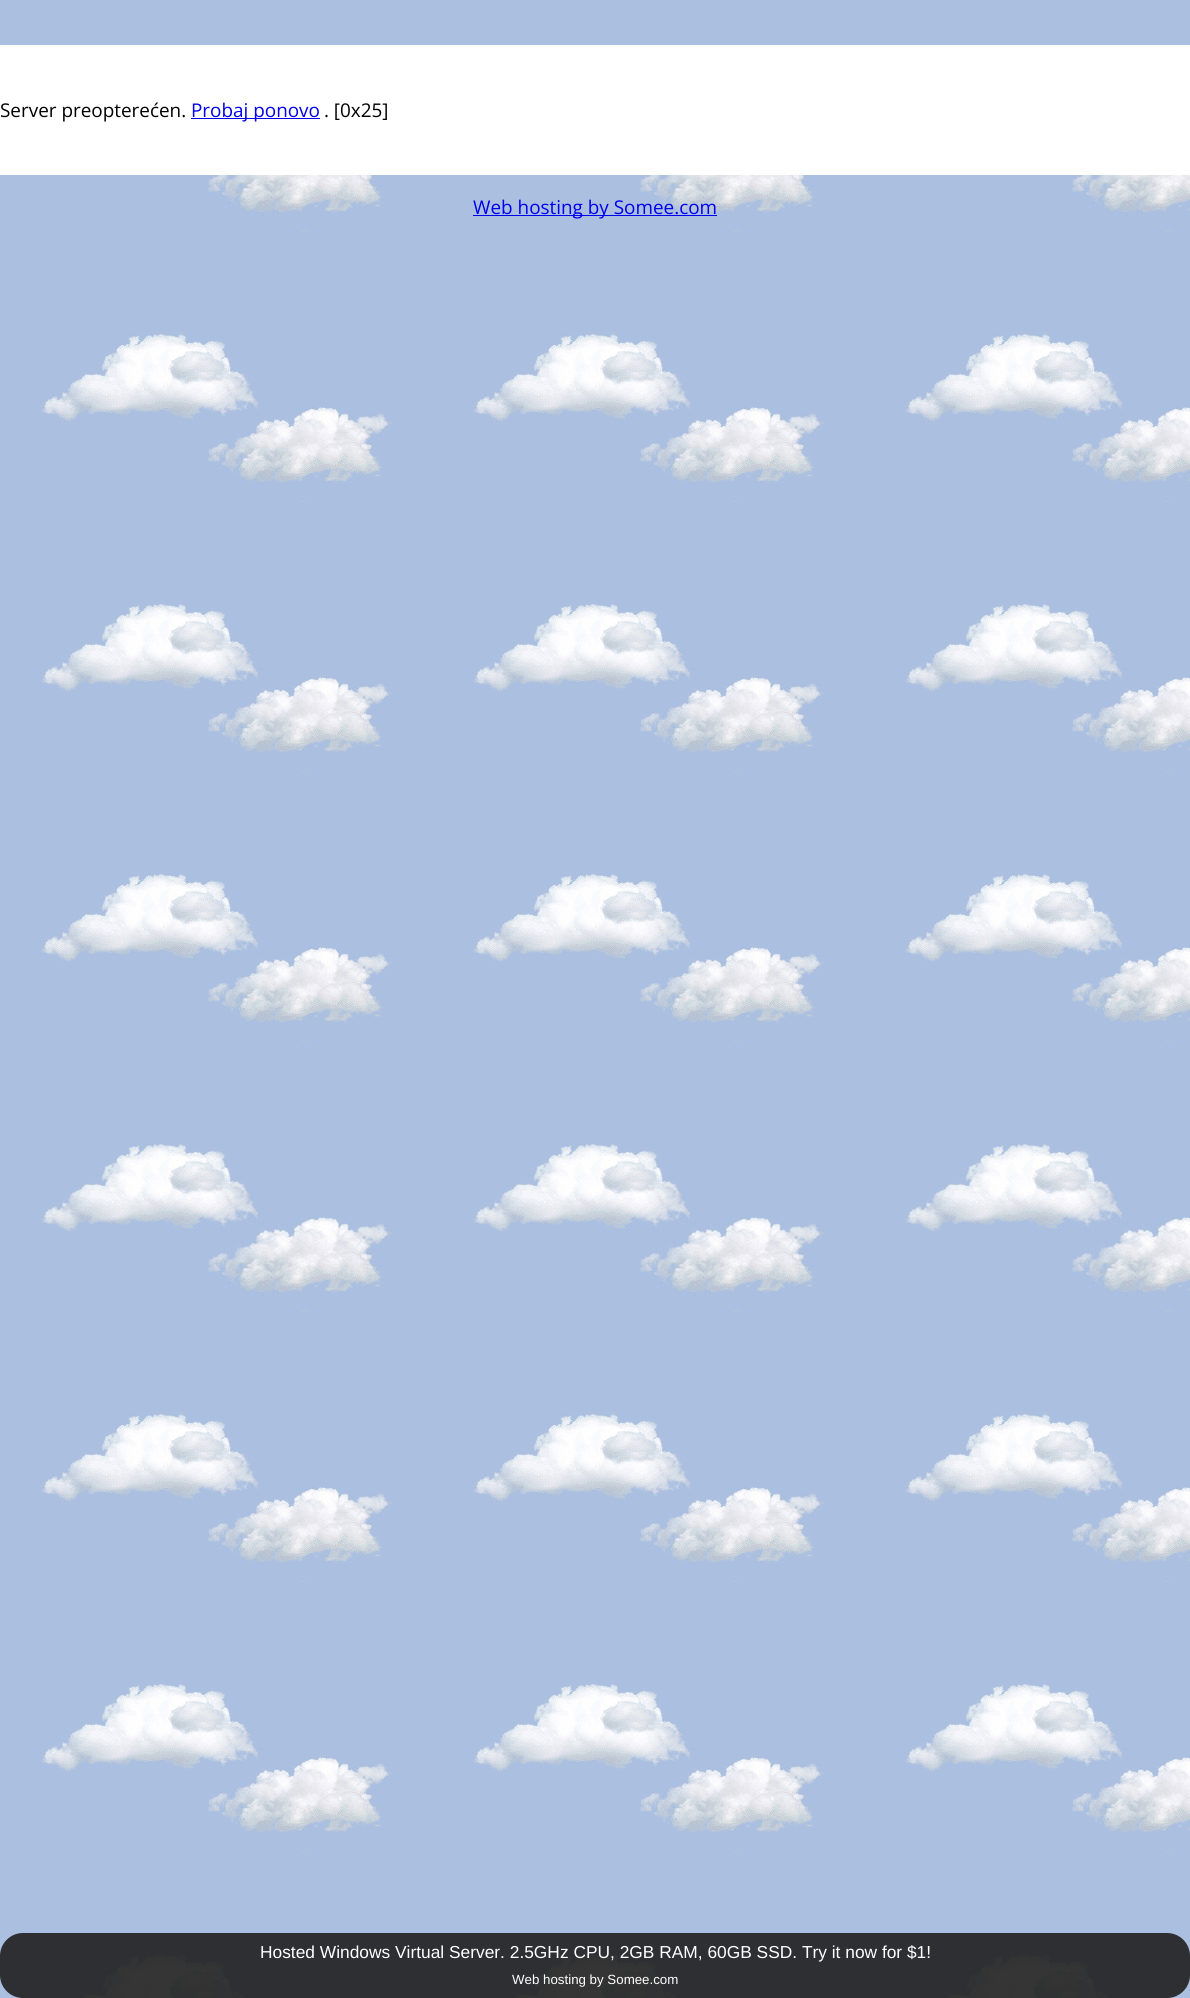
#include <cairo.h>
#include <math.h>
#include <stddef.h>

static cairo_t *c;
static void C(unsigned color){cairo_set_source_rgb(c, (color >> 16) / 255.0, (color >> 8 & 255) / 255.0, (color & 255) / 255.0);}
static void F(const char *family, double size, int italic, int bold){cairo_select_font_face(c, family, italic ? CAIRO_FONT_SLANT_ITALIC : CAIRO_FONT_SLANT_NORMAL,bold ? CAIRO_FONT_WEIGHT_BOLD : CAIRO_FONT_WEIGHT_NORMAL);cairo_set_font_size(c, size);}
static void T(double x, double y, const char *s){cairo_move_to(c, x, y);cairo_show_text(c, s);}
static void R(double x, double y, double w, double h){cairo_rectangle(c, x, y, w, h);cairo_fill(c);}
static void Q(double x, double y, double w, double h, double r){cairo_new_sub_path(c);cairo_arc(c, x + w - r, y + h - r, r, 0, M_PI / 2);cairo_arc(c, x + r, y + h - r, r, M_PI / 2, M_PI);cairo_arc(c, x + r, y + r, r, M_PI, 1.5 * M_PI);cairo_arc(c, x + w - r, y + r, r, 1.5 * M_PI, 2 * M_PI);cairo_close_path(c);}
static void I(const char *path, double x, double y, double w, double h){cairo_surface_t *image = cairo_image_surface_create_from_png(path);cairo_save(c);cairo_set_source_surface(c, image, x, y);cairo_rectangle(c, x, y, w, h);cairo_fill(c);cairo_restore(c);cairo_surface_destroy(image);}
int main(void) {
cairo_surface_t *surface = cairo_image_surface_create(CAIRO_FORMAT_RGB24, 1190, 1998);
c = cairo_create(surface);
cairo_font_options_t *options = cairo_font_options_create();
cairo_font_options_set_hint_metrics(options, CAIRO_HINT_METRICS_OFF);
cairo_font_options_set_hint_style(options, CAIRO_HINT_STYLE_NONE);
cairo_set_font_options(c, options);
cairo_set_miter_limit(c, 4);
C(0xffffff);
cairo_paint(c);
I("1.png",0,0,1190,1998);
C(0xffffff);
R(0,45,1190,130);
F("Open Sans",18.9,0,0);
C(0x000000);
T(0,117,"Server preopterećen.");
C(0x0000ee);
R(191,118,129,1);
T(191,117,"Probaj ponovo");
C(0x000000);
T(324,117,". [0x25]");
C(0x0000ee);
R(473,215,244,1);
T(473,214,"Web hosting by Somee.com");
cairo_set_source_rgba(c,0.125,0.125,0.125,0.9);
Q(0,1933,1190,65,23);
cairo_fill(c);
F("Liberation Sans",17.35,0,0);
C(0xffffff);
T(260,1958,"Hosted Windows Virtual Server. 2.5GHz CPU, 2GB RAM, 60GB SSD. Try it now for $1!");
F("Liberation Sans",13.3,0,0);
T(512,1984,"Web hosting by Somee.com");
cairo_surface_write_to_png(surface, "o.png");
cairo_font_options_destroy(options);
cairo_destroy(c);
cairo_surface_destroy(surface);
return 0;
}
